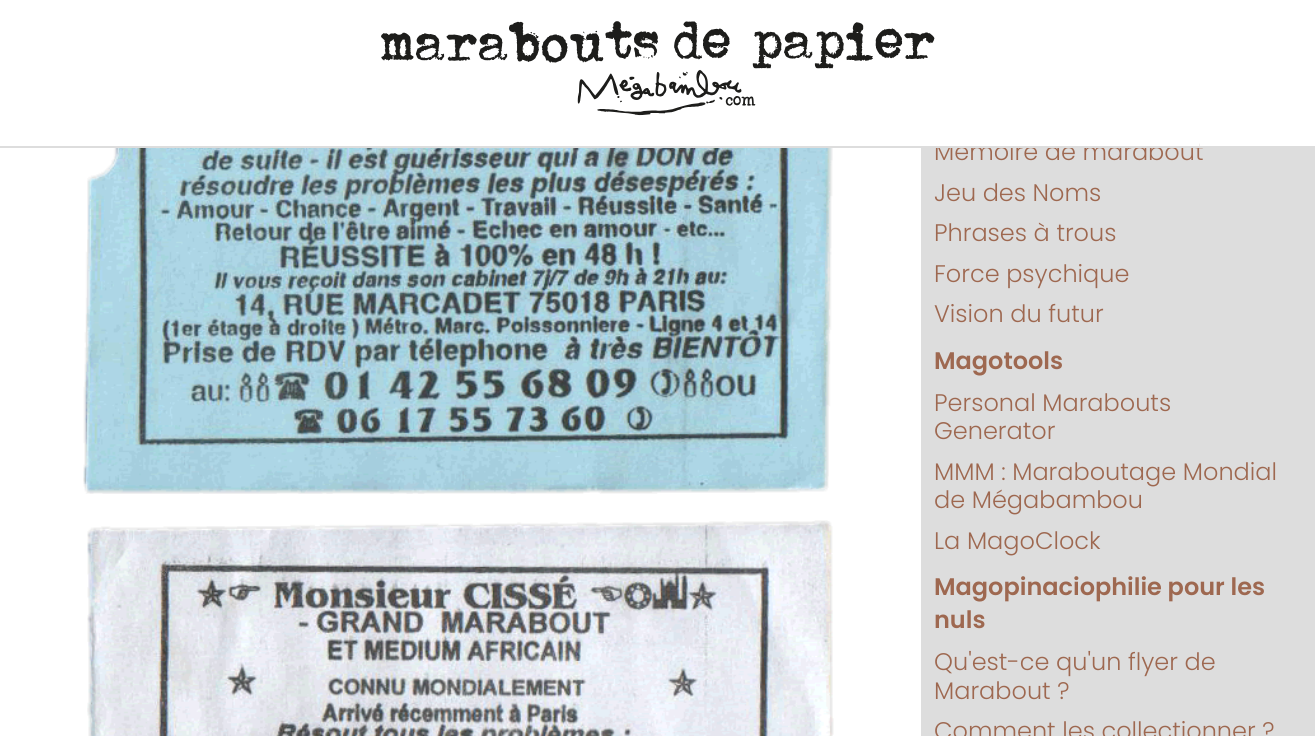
#include <cairo.h>
#include <math.h>
#include <stddef.h>

static cairo_t *c;
static void C(unsigned color){cairo_set_source_rgb(c, (color >> 16) / 255.0, (color >> 8 & 255) / 255.0, (color & 255) / 255.0);}
static void F(const char *family, double size, int italic, int bold){cairo_select_font_face(c, family, italic ? CAIRO_FONT_SLANT_ITALIC : CAIRO_FONT_SLANT_NORMAL,bold ? CAIRO_FONT_WEIGHT_BOLD : CAIRO_FONT_WEIGHT_NORMAL);cairo_set_font_size(c, size);}
static void T(double x, double y, const char *s){cairo_move_to(c, x, y);cairo_show_text(c, s);}
static void R(double x, double y, double w, double h){cairo_rectangle(c, x, y, w, h);cairo_fill(c);}
static void I(const char *path, double x, double y, double w, double h){cairo_surface_t *image = cairo_image_surface_create_from_png(path);cairo_save(c);cairo_set_source_surface(c, image, x, y);cairo_rectangle(c, x, y, w, h);cairo_fill(c);cairo_restore(c);cairo_surface_destroy(image);}
int main(void) {
cairo_surface_t *surface = cairo_image_surface_create(CAIRO_FORMAT_RGB24, 1315, 736);
c = cairo_create(surface);
cairo_font_options_t *options = cairo_font_options_create();
cairo_font_options_set_hint_metrics(options, CAIRO_HINT_METRICS_OFF);
cairo_font_options_set_hint_style(options, CAIRO_HINT_STYLE_NONE);
cairo_set_font_options(c, options);
cairo_set_miter_limit(c, 4);
C(0xffffff);
cairo_paint(c);
C(0xdddddd);
R(921,148,394,588);
F("Poppins Light",24,0,0);
C(0x9e6850);
T(934,160,"Mémoire de marabout");
C(0xffffff);
R(935,141,264,5);
C(0xdddddd);
R(0,146,1315,2);
I("1.png",381,21,554,95);
I("2.png",83,148,752,346);
I("3.png",87,520,747,216);
C(0x9e6850);
T(934,201,"Jeu des Noms");
T(934,241,"Phrases à trous");
T(934,282,"Force psychique");
T(934,322,"Vision du futur");
F("Poppins SemiBold",24,0,0);
T(934,369,"Magotools");
F("Poppins Light",24,0,0);
T(934,411,"Personal Marabouts");
T(934,439,"Generator");
T(934,480,"MMM : Maraboutage Mondial");
T(934,508,"de Mégabambou");
T(934,549,"La MagoClock");
F("Poppins SemiBold",24,0,0);
T(934,595,"Magopinaciophilie pour les");
T(934,628,"nuls");
F("Poppins Light",24,0,0);
T(934,670,"Qu'est-ce qu'un flyer de");
T(934,699,"Marabout ?");
T(934,739,"Comment les collectionner ?");
cairo_surface_write_to_png(surface, "o.png");
cairo_font_options_destroy(options);
cairo_destroy(c);
cairo_surface_destroy(surface);
return 0;
}
